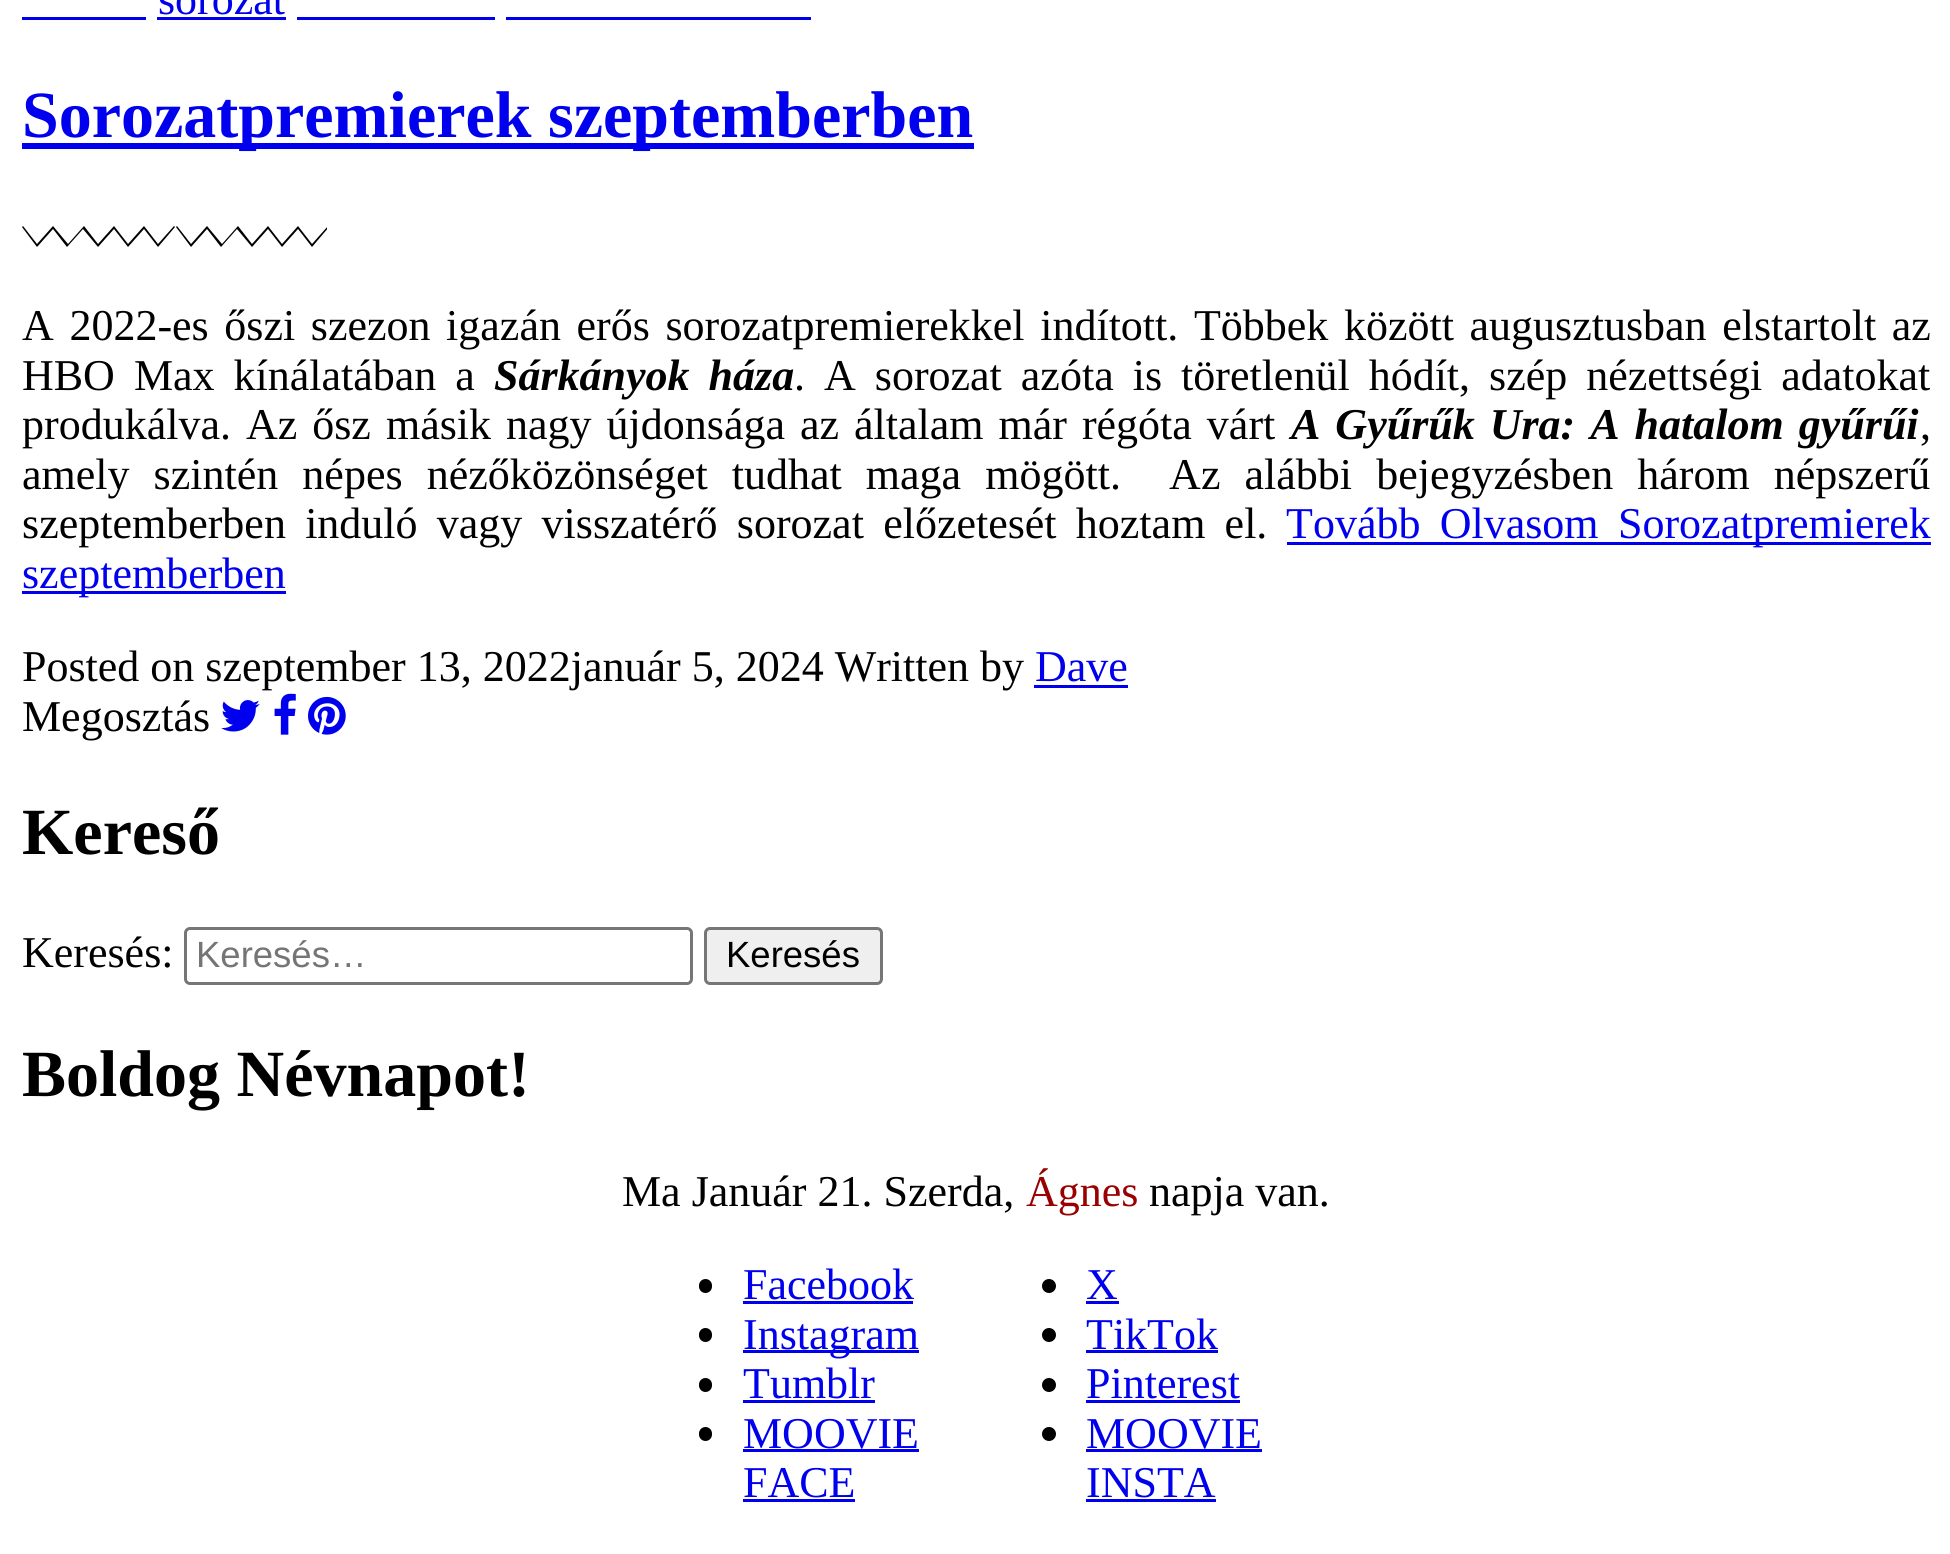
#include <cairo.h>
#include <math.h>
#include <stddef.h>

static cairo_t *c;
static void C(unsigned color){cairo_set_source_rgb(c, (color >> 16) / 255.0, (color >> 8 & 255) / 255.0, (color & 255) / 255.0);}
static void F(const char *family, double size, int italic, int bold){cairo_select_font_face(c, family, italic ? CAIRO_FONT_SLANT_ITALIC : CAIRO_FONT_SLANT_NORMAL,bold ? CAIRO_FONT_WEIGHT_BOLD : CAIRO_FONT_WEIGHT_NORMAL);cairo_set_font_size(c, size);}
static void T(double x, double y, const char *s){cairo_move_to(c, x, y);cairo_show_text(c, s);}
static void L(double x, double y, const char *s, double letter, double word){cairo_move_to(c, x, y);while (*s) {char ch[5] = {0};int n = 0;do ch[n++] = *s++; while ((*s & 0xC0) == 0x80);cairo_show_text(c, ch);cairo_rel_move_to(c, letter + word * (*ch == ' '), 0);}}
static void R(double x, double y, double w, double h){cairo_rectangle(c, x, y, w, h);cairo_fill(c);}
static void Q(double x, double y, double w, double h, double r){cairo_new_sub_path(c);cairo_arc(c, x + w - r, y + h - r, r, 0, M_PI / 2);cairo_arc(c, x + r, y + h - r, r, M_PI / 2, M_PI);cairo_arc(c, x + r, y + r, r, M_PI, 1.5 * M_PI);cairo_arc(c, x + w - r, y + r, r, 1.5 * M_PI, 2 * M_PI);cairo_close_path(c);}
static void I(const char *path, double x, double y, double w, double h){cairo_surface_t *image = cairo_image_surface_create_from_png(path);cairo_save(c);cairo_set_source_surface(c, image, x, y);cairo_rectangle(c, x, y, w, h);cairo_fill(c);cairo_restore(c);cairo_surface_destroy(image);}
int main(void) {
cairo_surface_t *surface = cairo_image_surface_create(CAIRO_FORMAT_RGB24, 1950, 1554);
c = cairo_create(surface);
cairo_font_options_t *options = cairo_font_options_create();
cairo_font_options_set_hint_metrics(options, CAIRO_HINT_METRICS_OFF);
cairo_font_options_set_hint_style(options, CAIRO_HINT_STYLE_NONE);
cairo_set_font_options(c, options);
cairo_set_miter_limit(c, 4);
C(0xffffff);
cairo_paint(c);
F("Liberation Serif",44,0,0);
C(0x0000ee);
T(158,14,"sorozat");
R(22,17,124,3);
R(157,17,129,3);
R(297,17,198,3);
R(506,17,305,3);
R(22,143,952,6);
F("Liberation Serif",66,0,1);
T(22,137,"Sorozatpremierek szeptemberben");
C(0x000000);
cairo_set_fill_rule(c,CAIRO_FILL_RULE_EVEN_ODD);
cairo_new_path(c);
cairo_move_to(c,175,227);
cairo_line_to(c,158,247);
cairo_line_to(c,144,229);
cairo_line_to(c,128,247);
cairo_line_to(c,114,229);
cairo_line_to(c,98,247);
cairo_line_to(c,83,229);
cairo_line_to(c,67,247);
cairo_line_to(c,53,229);
cairo_line_to(c,37,247);
cairo_line_to(c,22,227);
cairo_line_to(c,23,226);
cairo_line_to(c,37,244);
cairo_line_to(c,53,226);
cairo_line_to(c,68,244);
cairo_line_to(c,84,226);
cairo_line_to(c,98,244);
cairo_line_to(c,114,226);
cairo_line_to(c,128,244);
cairo_line_to(c,144,226);
cairo_line_to(c,158,244);
cairo_line_to(c,174,226);
cairo_close_path(c);
cairo_fill(c);
cairo_save(c);
cairo_set_fill_rule(c,CAIRO_FILL_RULE_WINDING);
cairo_rectangle(c,176,226,151,22);
cairo_clip(c);
cairo_set_fill_rule(c,CAIRO_FILL_RULE_EVEN_ODD);
cairo_new_path(c);
cairo_move_to(c,329,227);
cairo_line_to(c,312,247);
cairo_line_to(c,298,229);
cairo_line_to(c,282,247);
cairo_line_to(c,268,229);
cairo_line_to(c,252,247);
cairo_line_to(c,237,229);
cairo_line_to(c,221,247);
cairo_line_to(c,207,229);
cairo_line_to(c,191,247);
cairo_line_to(c,176,227);
cairo_line_to(c,177,226);
cairo_line_to(c,191,244);
cairo_line_to(c,207,226);
cairo_line_to(c,222,244);
cairo_line_to(c,238,226);
cairo_line_to(c,252,244);
cairo_line_to(c,268,226);
cairo_line_to(c,282,244);
cairo_line_to(c,298,226);
cairo_line_to(c,312,244);
cairo_line_to(c,328,226);
cairo_close_path(c);
cairo_fill(c);
cairo_restore(c);
F("Liberation Serif",44,0,0);
L(22,340,"A 2022-es őszi szezon igazán erős sorozatpremierekkel indított. Többek között augusztusban elstartolt az",0,4.6);
L(22,390,"HBO Max kínálatában a",0,8);
F("Liberation Serif",44,1,1);
L(494,390,"Sárkányok háza",0,8);
F("Liberation Serif",44,0,0);
L(794,390,". A sorozat azóta is töretlenül hódít, szép nézettségi adatokat",0,8);
L(22,439,"produkálva. Az ősz másik nagy újdonsága az általam már régóta várt",0,4);
F("Liberation Serif",44,1,1);
L(1291,439,"A Gyűrűk Ura: A hatalom gyűrűi",0,4);
F("Liberation Serif",44,0,0);
T(1920,439,",");
L(22,489,"amely szintén népes nézőközönséget tudhat maga mögött.  Az alábbi bejegyzésben három népszerű",0,13.1);
L(22,538,"szeptemberben induló vagy visszatérő sorozat előzetesét hoztam el.",0,8.25);
C(0x0000ee);
L(1286,538,"Tovább Olvasom",0,8.25);
R(1287,542,644,3);
T(1618,538,"Sorozatpremierek");
R(22,591,264,3);
T(22,588,"szeptemberben");
C(0x000000);
T(22,681,"Posted on szeptember 13, 2022január 5, 2024 Written by");
C(0x0000ee);
T(1035,681,"Dave");
R(1034,685,94,3);
C(0x000000);
T(22,731,"Megosztás");
I("1.png",221,700,39,32);
I("2.png",274,693,22,42);
I("3.png",308,696,38,39);
F("Liberation Serif",66,0,1);
T(22,854,"Kereső");
F("Liberation Serif",44,0,0);
T(22,967,"Keresés:");
Q(185.5,928.5,506,55,4.5);
C(0x767676);
cairo_set_line_width(c,3);
cairo_stroke(c);
F("Liberation Sans",36.5,0,0);
C(0x757575);
T(196,967,"Keresés…");
C(0xefefef);
Q(705.5,928.5,176,55,4.5);
cairo_fill_preserve(c);
C(0x767676);
cairo_stroke(c);
C(0x000000);
T(726,967,"Keresés");
F("Liberation Serif",66,0,1);
T(22,1096,"Boldog Névnapot!");
F("Liberation Serif",44,0,0);
T(622,1206,"Ma Január 21. Szerda,");
C(0x990000);
T(1026,1206,"Ágnes");
C(0x000000);
T(1149,1206,"napja van.");
Q(699,1279,13,14,6.5);
cairo_fill(c);
C(0x0000ee);
T(743,1299,"Facebook");
R(743,1301,170,3);
C(0x000000);
Q(699,1328,13,14,6.5);
cairo_fill(c);
C(0x0000ee);
R(743,1350,176,3);
T(743,1349,"Instagram");
C(0x000000);
Q(699,1378,13,14,6.5);
cairo_fill(c);
C(0x0000ee);
T(743,1398,"Tumblr");
R(743,1400,132,3);
C(0x000000);
Q(699,1427,13,14,6.5);
cairo_fill(c);
C(0x0000ee);
T(743,1448,"MOOVIE");
R(743,1449,176,3);
T(743,1497,"FACE");
R(743,1499,112,3);
C(0x000000);
cairo_new_path(c);
cairo_arc(c,1049,1286,7,0,2 * M_PI);
cairo_fill(c);
C(0x0000ee);
T(1086,1299,"X");
R(1086,1301,33,3);
C(0x000000);
cairo_new_path(c);
cairo_arc(c,1049,1335,7,0,2 * M_PI);
cairo_fill(c);
C(0x0000ee);
T(1086,1349,"TikTok");
R(1086,1350,132,3);
C(0x000000);
cairo_new_path(c);
cairo_arc(c,1049,1385,7,0,2 * M_PI);
cairo_fill(c);
C(0x0000ee);
T(1086,1398,"Pinterest");
R(1086,1400,154,3);
C(0x000000);
cairo_new_path(c);
cairo_arc(c,1049,1434,7,0,2 * M_PI);
cairo_fill(c);
C(0x0000ee);
T(1086,1448,"MOOVIE");
R(1086,1449,176,3);
T(1086,1497,"INSTA");
R(1086,1499,130,3);
cairo_surface_write_to_png(surface, "o.png");
cairo_font_options_destroy(options);
cairo_destroy(c);
cairo_surface_destroy(surface);
return 0;
}
